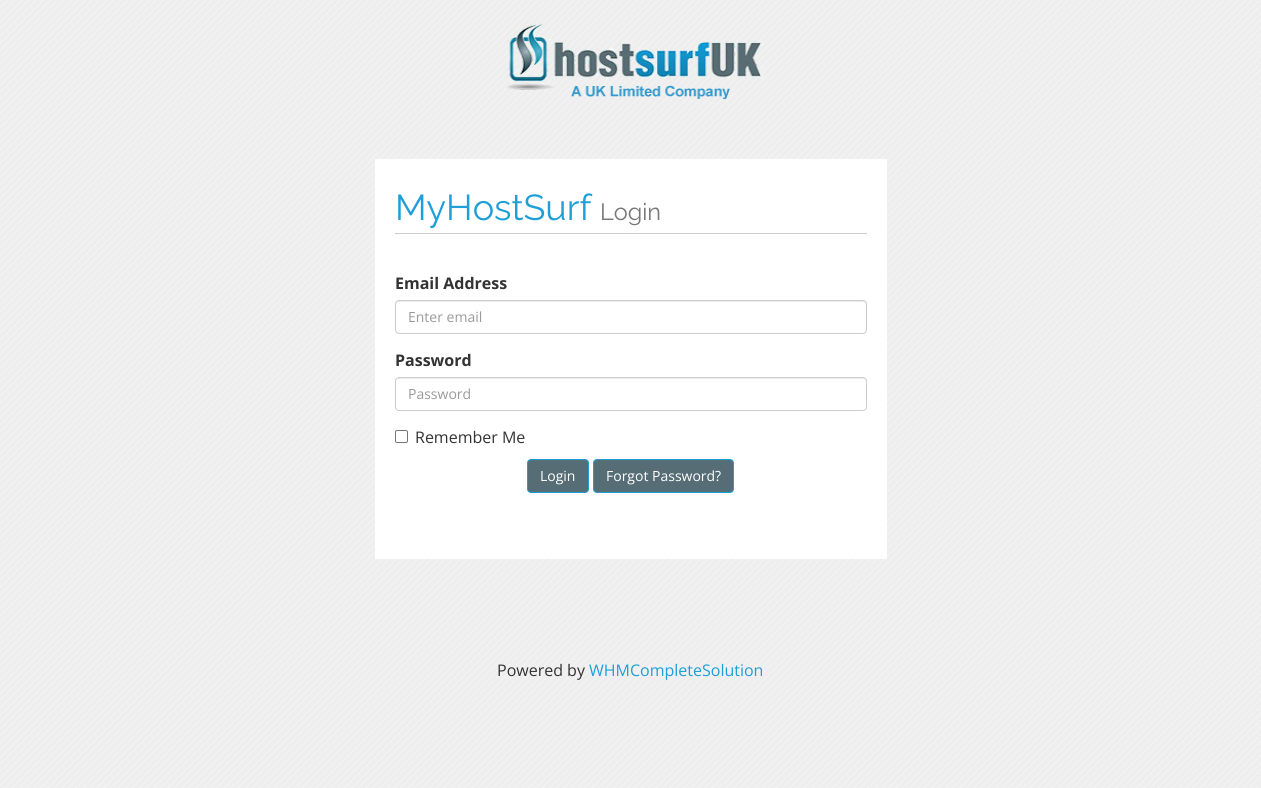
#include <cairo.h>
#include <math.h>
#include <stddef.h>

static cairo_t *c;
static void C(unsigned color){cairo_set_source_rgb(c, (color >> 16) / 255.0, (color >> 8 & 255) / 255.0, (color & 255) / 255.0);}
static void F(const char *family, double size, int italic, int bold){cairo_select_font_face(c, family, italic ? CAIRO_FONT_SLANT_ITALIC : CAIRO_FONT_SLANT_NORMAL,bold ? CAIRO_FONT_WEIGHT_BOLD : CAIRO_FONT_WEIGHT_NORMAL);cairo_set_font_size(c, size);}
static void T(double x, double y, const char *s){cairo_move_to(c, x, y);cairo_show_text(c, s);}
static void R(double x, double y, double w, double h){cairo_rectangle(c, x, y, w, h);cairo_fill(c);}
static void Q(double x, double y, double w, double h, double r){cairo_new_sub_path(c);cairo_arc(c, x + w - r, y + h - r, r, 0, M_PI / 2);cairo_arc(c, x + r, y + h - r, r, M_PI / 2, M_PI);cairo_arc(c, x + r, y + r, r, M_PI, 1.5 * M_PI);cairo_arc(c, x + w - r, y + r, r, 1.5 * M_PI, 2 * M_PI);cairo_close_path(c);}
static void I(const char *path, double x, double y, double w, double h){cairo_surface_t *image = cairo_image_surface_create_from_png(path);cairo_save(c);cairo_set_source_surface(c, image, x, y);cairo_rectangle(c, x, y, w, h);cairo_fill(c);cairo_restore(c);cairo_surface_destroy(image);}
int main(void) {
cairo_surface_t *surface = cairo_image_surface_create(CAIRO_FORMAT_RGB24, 1261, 788);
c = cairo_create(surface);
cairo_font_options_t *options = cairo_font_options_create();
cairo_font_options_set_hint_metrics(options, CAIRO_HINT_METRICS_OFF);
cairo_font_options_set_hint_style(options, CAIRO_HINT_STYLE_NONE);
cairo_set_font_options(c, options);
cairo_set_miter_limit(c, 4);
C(0xffffff);
cairo_paint(c);
I("1.png",0,0,1261,788);
I("2.png",506,23,258,76);
C(0xffffff);
R(375,159,512,400);
C(0xcccccc);
R(395,233,472,1);
F("Raleway",36,0,0);
C(0x1e9fd8);
T(395,220,"MyHostSurf");
F("Raleway",23.5,0,0);
C(0x777777);
T(600,220,"Login");
F("Open Sans",16,0,1);
C(0x333333);
T(395,289,"Email Address");
C(0xececec);
cairo_new_path(c);
cairo_move_to(c,399,302);
cairo_line_to(c,863,302);
cairo_curve_to(c,865,302,866,303,866,305);
cairo_line_to(c,866,304);
cairo_curve_to(c,866,302,865,301,863,301);
cairo_line_to(c,399,301);
cairo_curve_to(c,397,301,396,302,396,304);
cairo_line_to(c,396,305);
cairo_curve_to(c,396,303,397,302,399,302);
cairo_close_path(c);
cairo_fill(c);
Q(395.5,300.5,471,33,3.5);
C(0xcccccc);
cairo_set_line_width(c,1);
cairo_stroke(c);
F("Open Sans",14,0,0);
C(0x999999);
T(408,322,"Enter email");
F("Open Sans",16,0,1);
C(0x333333);
T(395,366,"Password");
C(0xececec);
cairo_new_path(c);
cairo_move_to(c,399,379);
cairo_line_to(c,863,379);
cairo_curve_to(c,865,379,866,380,866,382);
cairo_line_to(c,866,381);
cairo_curve_to(c,866,379,865,378,863,378);
cairo_line_to(c,399,378);
cairo_curve_to(c,397,378,396,379,396,381);
cairo_line_to(c,396,382);
cairo_curve_to(c,396,380,397,379,399,379);
cairo_close_path(c);
cairo_fill(c);
Q(395.5,377.5,471,33,3.5);
C(0xcccccc);
cairo_stroke(c);
F("Open Sans",14,0,0);
C(0x999999);
T(408,399,"Password");
Q(395.5,430.5,12,12,1.5);
C(0x767676);
cairo_stroke(c);
F("Open Sans",16,0,0);
C(0x333333);
T(415,443,"Remember Me");
C(0x566d75);
Q(527.5,459.5,61,33,3.5);
cairo_fill_preserve(c);
C(0x1e9fd8);
cairo_stroke(c);
F("Open Sans",14,0,0);
C(0xffffff);
T(540,481,"Login");
C(0x566d75);
Q(593.5,459.5,140,33,3.5);
cairo_fill_preserve(c);
C(0x1e9fd8);
cairo_stroke(c);
C(0xffffff);
T(606,481,"Forgot Password?");
F("Open Sans",16,0,0);
C(0x333333);
T(497,676,"Powered by");
C(0x1e9fd8);
T(589,676,"WHMCompleteSolution");
cairo_surface_write_to_png(surface, "o.png");
cairo_font_options_destroy(options);
cairo_destroy(c);
cairo_surface_destroy(surface);
return 0;
}
